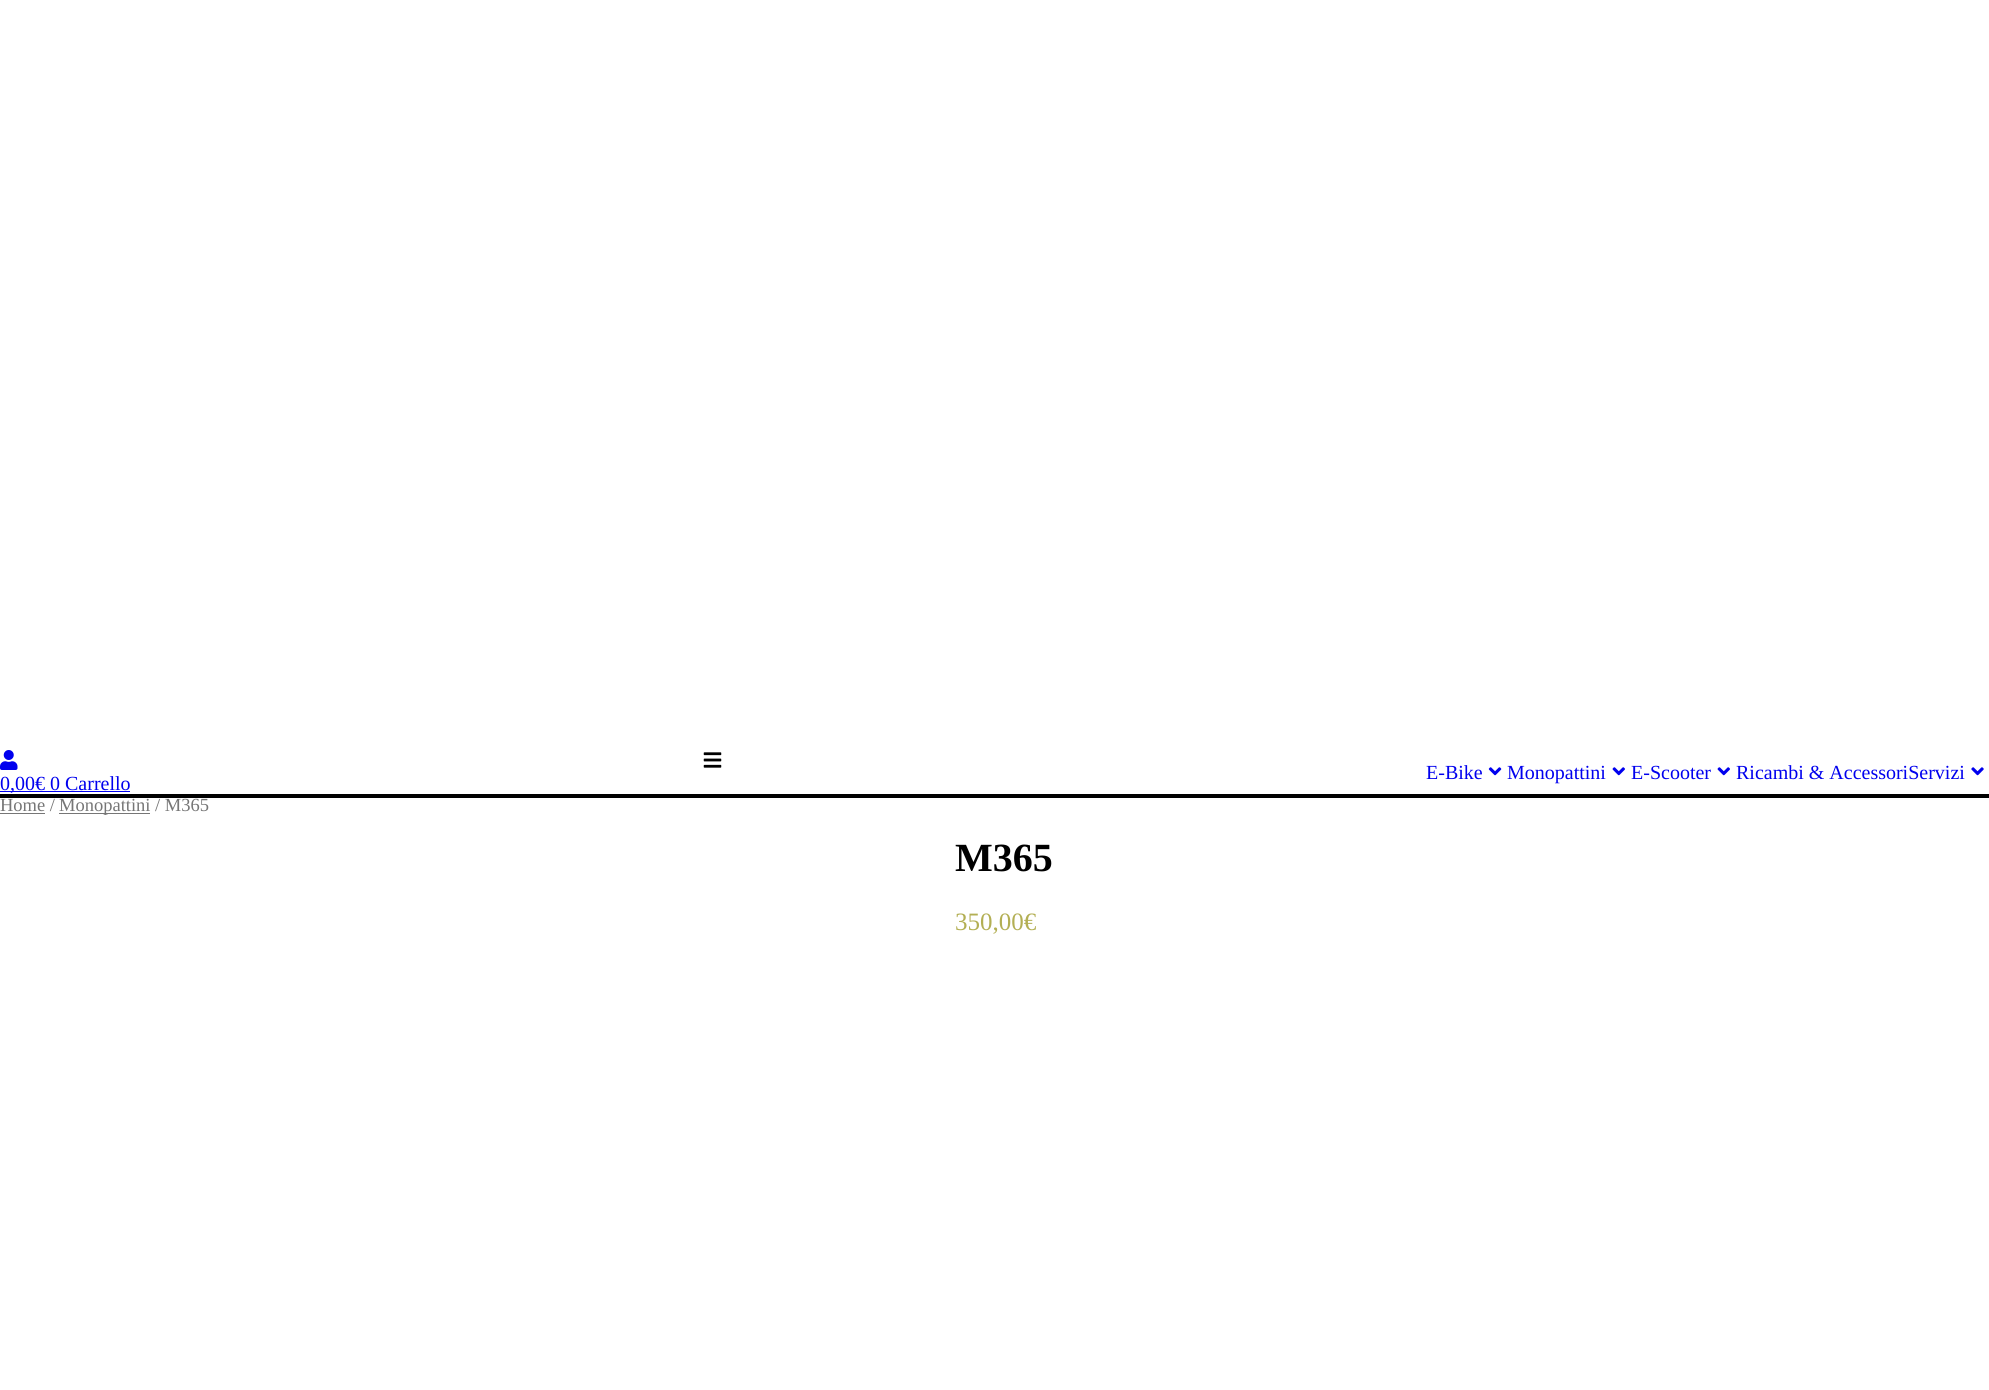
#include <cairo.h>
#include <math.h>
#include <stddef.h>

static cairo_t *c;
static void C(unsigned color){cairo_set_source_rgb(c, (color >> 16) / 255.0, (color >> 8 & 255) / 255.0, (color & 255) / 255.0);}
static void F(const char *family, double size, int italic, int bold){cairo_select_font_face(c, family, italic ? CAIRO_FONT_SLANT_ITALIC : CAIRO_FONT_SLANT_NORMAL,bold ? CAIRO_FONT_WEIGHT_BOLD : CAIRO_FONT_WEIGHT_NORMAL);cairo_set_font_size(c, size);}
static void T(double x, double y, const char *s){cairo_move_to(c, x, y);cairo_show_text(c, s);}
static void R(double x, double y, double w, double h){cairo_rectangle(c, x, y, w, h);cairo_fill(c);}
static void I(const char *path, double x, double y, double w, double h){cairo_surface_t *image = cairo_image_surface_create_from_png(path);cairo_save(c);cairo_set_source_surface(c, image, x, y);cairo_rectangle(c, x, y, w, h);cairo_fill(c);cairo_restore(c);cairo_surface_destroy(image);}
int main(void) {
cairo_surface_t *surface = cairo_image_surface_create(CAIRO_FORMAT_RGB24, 1989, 1390);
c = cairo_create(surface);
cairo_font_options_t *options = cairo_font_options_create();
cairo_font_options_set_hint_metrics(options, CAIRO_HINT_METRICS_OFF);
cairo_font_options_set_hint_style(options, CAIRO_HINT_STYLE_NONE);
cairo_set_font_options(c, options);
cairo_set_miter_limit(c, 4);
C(0xffffff);
cairo_paint(c);
I("1.png",0,750,18,20);
C(0x0000ee);
R(0,791,130,1);
F("Liberation Serif",20,0,0);
T(0,790,"0,00€ 0 Carrello");
C(0x000000);
R(0,794,1989,4);
I("2.png",703,752,19,16);
C(0x0000ee);
T(1426,779,"E-Bike");
I("3.png",1488,767,14,9);
T(1507,779,"Monopattini");
I("4.png",1612,767,13,9);
T(1631,779,"E-Scooter");
I("4.png",1717,767,13,9);
T(1736,779,"Ricambi & AccessoriServizi");
I("5.png",1971,767,13,9);
F("Liberation Serif",18.5,0,0);
C(0x767676);
T(0,811,"Home /");
R(0,813,45,1);
R(59,813,91,1);
T(59,811,"Monopattini / M365");
F("Liberation Serif",40,0,1);
C(0x000000);
T(955,871,"M365");
F("Liberation Serif",25,0,0);
C(0xb3af54);
T(955,930,"350,00€");
cairo_surface_write_to_png(surface, "o.png");
cairo_font_options_destroy(options);
cairo_destroy(c);
cairo_surface_destroy(surface);
return 0;
}
